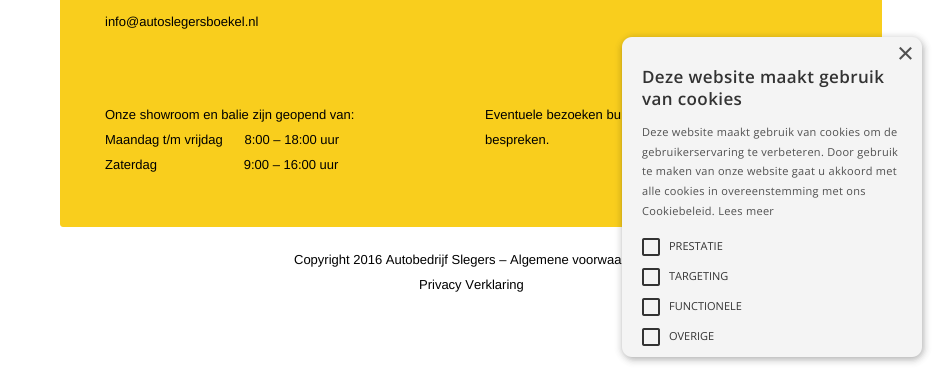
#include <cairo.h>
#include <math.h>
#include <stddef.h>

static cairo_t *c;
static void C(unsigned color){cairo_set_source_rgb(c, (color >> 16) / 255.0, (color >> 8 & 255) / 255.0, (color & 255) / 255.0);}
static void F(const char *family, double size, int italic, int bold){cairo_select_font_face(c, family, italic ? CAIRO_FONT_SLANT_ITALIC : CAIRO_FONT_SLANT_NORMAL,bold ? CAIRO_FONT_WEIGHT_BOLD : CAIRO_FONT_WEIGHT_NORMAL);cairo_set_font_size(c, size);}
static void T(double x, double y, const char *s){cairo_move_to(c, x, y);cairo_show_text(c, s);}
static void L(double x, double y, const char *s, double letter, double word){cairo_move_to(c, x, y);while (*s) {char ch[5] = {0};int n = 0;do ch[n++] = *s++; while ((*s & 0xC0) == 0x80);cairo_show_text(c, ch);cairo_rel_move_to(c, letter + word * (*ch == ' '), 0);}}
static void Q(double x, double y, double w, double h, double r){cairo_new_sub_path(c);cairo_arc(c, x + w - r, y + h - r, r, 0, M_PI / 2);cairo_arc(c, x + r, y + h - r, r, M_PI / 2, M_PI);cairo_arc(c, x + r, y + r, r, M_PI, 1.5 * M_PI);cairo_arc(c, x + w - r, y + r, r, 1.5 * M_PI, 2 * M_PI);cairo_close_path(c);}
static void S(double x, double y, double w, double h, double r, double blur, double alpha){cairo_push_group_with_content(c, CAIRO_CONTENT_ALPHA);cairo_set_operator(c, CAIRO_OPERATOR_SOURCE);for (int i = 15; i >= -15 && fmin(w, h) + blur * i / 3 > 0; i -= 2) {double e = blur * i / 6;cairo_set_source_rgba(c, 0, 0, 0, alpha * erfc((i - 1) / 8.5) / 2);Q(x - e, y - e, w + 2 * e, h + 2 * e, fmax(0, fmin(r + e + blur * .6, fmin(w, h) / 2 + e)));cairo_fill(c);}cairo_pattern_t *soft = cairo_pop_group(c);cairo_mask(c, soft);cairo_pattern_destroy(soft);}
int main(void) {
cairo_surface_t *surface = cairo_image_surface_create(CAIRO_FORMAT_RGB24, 942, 377);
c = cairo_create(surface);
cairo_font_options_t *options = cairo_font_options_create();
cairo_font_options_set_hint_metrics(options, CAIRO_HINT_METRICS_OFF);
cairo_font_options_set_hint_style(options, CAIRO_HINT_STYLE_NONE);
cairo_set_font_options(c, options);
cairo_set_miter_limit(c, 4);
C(0xffffff);
cairo_paint(c);
C(0xf9ce1d);
Q(60,-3,822,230,3);
cairo_fill(c);
F("Arimo",13,0,0);
C(0x000000);
T(105,26,"info@autoslegersboekel.nl");
T(105,119,"Onze showroom en balie zijn geopend van:");
T(105,144,"Maandag t/m vrijdag      8:00 – 18:00 uur");
T(105,169,"Zaterdag                        9:00 – 16:00 uur");
T(485,119,"Eventuele bezoeken bu");
T(485,144,"bespreken.");
T(294,264,"Copyright 2016 Autobedrijf Slegers – Algemene voorwaa");
T(419,289,"Privacy Verklaring");
C(0x000000);
S(623,39,300,320,10,4,.35);
C(0xf4f4f4);
Q(622,37,300,320,10);
cairo_fill(c);
F("Liberation Sans",29,0,0);
C(0x505050);
T(897,63,"×");
F("Open Sans SemiBold",17,0,0);
C(0x333333);
L(642,83,"Deze website maakt gebruik",.4,0);
L(642,105,"van cookies",.4,0);
F("Open Sans",11,0,0);
C(0x505050);
L(642,136,"Deze website maakt gebruik van cookies om de",.3,0);
L(642,156,"gebruikerservaring te verbeteren. Door gebruik",.3,0);
L(642,175,"te maken van onze website gaat u akkoord met",.3,0);
L(642,195,"alle cookies in overeenstemming met ons",.3,0);
L(642,215,"Cookiebeleid. Lees meer",.3,0);
Q(643,239,16,16,1);
C(0x333333);
cairo_stroke(c);
T(669,250,"PRESTATIE");
Q(643,269,16,16,1);
cairo_stroke(c);
T(669,280,"TARGETING");
Q(643,299,16,16,1);
cairo_stroke(c);
T(669,310,"FUNCTIONELE");
Q(643,329,16,16,1);
cairo_stroke(c);
T(669,340,"OVERIGE");
cairo_surface_write_to_png(surface, "o.png");
cairo_font_options_destroy(options);
cairo_destroy(c);
cairo_surface_destroy(surface);
return 0;
}
